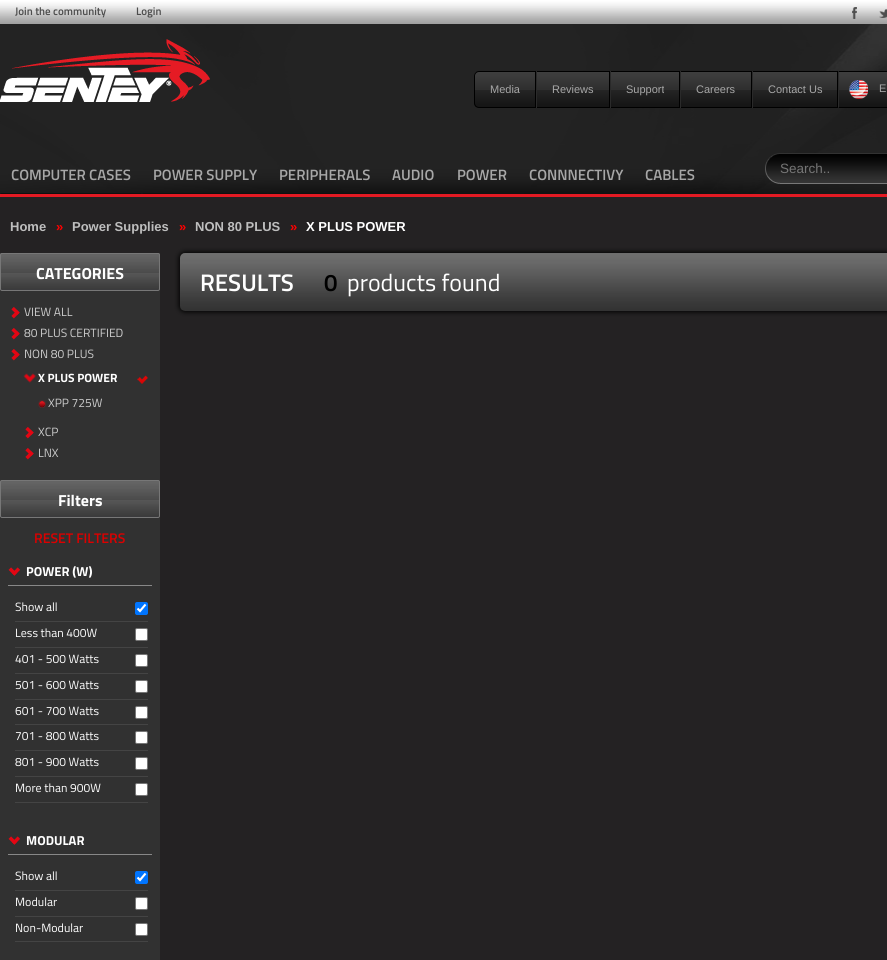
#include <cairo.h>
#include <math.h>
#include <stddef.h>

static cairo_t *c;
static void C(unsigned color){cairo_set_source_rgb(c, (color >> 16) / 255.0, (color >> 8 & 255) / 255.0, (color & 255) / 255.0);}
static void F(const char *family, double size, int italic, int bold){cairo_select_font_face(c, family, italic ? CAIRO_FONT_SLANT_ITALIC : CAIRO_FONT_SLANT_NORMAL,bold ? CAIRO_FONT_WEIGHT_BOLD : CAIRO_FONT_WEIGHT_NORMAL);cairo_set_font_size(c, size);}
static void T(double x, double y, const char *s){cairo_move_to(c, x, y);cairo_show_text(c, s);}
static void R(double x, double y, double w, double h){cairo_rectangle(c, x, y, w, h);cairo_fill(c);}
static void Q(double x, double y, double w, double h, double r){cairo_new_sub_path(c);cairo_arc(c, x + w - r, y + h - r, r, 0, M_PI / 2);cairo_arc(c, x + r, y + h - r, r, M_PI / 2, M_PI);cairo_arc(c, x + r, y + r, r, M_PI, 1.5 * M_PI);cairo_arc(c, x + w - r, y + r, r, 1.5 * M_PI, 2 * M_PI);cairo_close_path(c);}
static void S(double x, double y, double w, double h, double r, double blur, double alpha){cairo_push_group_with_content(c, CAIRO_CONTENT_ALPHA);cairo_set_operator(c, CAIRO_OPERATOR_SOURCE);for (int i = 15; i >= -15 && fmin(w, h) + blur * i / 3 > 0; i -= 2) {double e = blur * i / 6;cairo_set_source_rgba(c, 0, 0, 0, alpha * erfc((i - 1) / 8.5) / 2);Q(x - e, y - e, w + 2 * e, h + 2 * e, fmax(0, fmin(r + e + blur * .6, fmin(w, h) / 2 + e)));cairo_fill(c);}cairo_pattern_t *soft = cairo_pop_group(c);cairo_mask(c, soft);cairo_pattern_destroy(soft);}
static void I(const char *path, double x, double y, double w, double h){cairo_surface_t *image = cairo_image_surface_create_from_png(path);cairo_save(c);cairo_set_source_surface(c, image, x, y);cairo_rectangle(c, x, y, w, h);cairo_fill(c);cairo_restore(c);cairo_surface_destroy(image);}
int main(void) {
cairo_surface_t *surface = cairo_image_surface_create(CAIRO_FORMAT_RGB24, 887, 960);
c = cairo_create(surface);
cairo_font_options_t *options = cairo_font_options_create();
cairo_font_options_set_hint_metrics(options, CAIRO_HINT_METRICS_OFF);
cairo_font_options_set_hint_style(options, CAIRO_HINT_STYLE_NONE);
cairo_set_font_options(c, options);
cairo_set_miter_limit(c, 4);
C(0x242223);
cairo_paint(c);
I("1.png",0,0,887,24);
F("Titillium Web SemiBold",11,0,0);
C(0x4d4d4d);
T(15,15,"Join the community");
T(136,15,"Login");
I("2.png",852,7,5,12);
I("3.png",879,9,8,9);
I("4.png",0,24,887,170);
I("5.png",0,39,210,63);
I("6.png",474,72,61,35);
cairo_new_path(c);
cairo_move_to(c,479,71.5);
cairo_line_to(c,535.5,71.5);
cairo_line_to(c,535.5,107.5);
cairo_line_to(c,479,107.5);
cairo_curve_to(c,476.5,107.5,474.5,105.5,474.5,103);
cairo_line_to(c,474.5,76);
cairo_curve_to(c,474.5,73.5,476.5,71.5,479,71.5);
cairo_close_path(c);
C(0x000000);
cairo_set_line_width(c,1);
cairo_stroke(c);
F("Liberation Sans",11,0,0);
C(0xa7a7a7);
T(490,93,"Media");
I("7.png",537,72,72,35);
C(0x000000);
R(536,71,302,1);
R(609,71,1,37);
R(536,107,74,1);
C(0x2a2a2a);
R(536,71,1,37);
C(0xa7a7a7);
T(552,93,"Reviews");
I("8.png",611,72,68,35);
C(0x000000);
R(679,71,1,37);
R(610,107,70,1);
C(0x2a2a2a);
R(610,71,1,37);
C(0xa7a7a7);
T(626,93,"Support");
I("9.png",681,72,70,35);
C(0x000000);
R(751,71,1,37);
R(680,107,72,1);
C(0x2a2a2a);
R(680,71,1,37);
C(0xa7a7a7);
T(696,93,"Careers");
I("10.png",753,72,84,35);
C(0x000000);
R(837,71,1,37);
R(752,107,86,1);
C(0x2a2a2a);
R(752,71,1,37);
C(0xa7a7a7);
T(768,93,"Contact Us");
I("11.png",839,72,48,35);
C(0x000000);
cairo_new_path(c);
cairo_move_to(c,838,71);
cairo_line_to(c,839,72);
cairo_line_to(c,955,72);
cairo_line_to(c,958,73);
cairo_line_to(c,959,72);
cairo_curve_to(c,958,72,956,71,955,71);
cairo_close_path(c);
cairo_move_to(c,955,108);
cairo_curve_to(c,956,108,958,108,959,107);
cairo_line_to(c,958,106);
cairo_line_to(c,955,107);
cairo_line_to(c,839,107);
cairo_line_to(c,838,108);
cairo_close_path(c);
cairo_fill(c);
C(0x2a2a2a);
cairo_new_path(c);
cairo_move_to(c,838,71);
cairo_line_to(c,838,108);
cairo_line_to(c,839,107);
cairo_line_to(c,839,72);
cairo_close_path(c);
cairo_fill(c);
I("12.png",849,80,19,19);
C(0xa7a7a7);
T(879,92,"E");
C(0xe31a23);
R(0,194,887,3);
C(0x101010);
cairo_new_path(c);
cairo_move_to(c,142,194);
cairo_line_to(c,141,193);
cairo_line_to(c,1,193);
cairo_line_to(c,0,194);
cairo_close_path(c);
cairo_fill(c);
F("Titillium Web SemiBold",15,0,0);
C(0xa7a7a7);
T(11,180,"COMPUTER CASES");
C(0x101010);
cairo_new_path(c);
cairo_move_to(c,268,194);
cairo_line_to(c,267,193);
cairo_line_to(c,143,193);
cairo_line_to(c,142,194);
cairo_close_path(c);
cairo_fill(c);
C(0xa7a7a7);
T(153,180,"POWER SUPPLY");
C(0x101010);
cairo_new_path(c);
cairo_move_to(c,381,194);
cairo_line_to(c,380,193);
cairo_line_to(c,269,193);
cairo_line_to(c,268,194);
cairo_close_path(c);
cairo_fill(c);
C(0xa7a7a7);
T(279,180,"PERIPHERALS");
T(392,180,"AUDIO");
T(457,180,"POWER");
T(529,180,"CONNNECTIVY");
T(645,180,"CABLES");
I("13.png",765,153,122,31);
F("Liberation Sans",13.5,0,0);
C(0x757575);
T(780,173,"Search..");
F("Liberation Sans",13,0,1);
C(0xbebebe);
T(10,231,"Home");
C(0xff0000);
T(56,231,"»");
C(0xbebebe);
T(72,231,"Power Supplies");
C(0xff0000);
T(179,231,"»");
C(0xbebebe);
T(195,231,"NON 80 PLUS");
C(0xff0000);
T(290,231,"»");
C(0xffffff);
T(306,231,"X PLUS POWER");
I("14.png",0,253,160,38);
Q(.5,253.5,159,37,1.5);
C(0x777777);
cairo_stroke(c);
F("Titillium Web",16,0,1);
C(0xffffff);
T(36,279,"CATEGORIES");
C(0x313131);
R(0,291,160,189);
I("15.png",11,307,9,12);
F("Titillium Web",12,0,0);
C(0xcccccc);
T(24,316,"VIEW ALL");
I("15.png",11,328,9,12);
T(24,337,"80 PLUS CERTIFIED");
I("15.png",11,349,9,12);
T(24,358,"NON 80 PLUS");
I("16.png",23,373,13,10);
F("Titillium Web",12,0,1);
C(0xffffff);
T(38,382,"X PLUS POWER");
I("17.png",137,375,11,9);
I("18.png",38,400,8,8);
F("Titillium Web",12,0,0);
C(0xcccccc);
T(48,407,"XPP 725W");
I("15.png",25,427,9,12);
T(38,436,"XCP");
I("15.png",25,448,9,12);
T(38,457,"LNX");
I("14.png",0,480,160,38);
Q(.5,480.5,159,37,1.5);
C(0x777777);
cairo_stroke(c);
F("Titillium Web",16,0,1);
C(0xffffff);
T(58,506,"Filters");
C(0x313131);
R(0,518,160,442);
F("Titillium Web SemiBold",14,0,0);
C(0xdc0000);
T(34,543,"RESET FILTERS");
I("19.png",8,567,12,9);
C(0x888888);
R(8,585,144,1);
F("Titillium Web",13,0,1);
C(0xffffff);
T(26,576,"POWER (W)");
C(0x444444);
R(15,621,133,1);
F("Titillium Web",12,0,0);
C(0xffffff);
T(15,611,"Show all");
C(0x0075ff);
Q(135,602,13,13,2);
cairo_fill(c);
cairo_new_path(c);
cairo_move_to(c,137.5,608.5);
cairo_line_to(c,140,611);
cairo_line_to(c,145.5,604.5);
C(0xffffff);
cairo_set_line_width(c,2.1);
cairo_stroke(c);
C(0x444444);
R(15,647,133,1);
C(0xffffff);
T(15,637,"Less than 400W");
Q(135.5,628.5,12,12,1.5);
cairo_fill_preserve(c);
C(0x767676);
cairo_set_line_width(c,1);
cairo_stroke(c);
C(0x444444);
R(15,673,133,1);
C(0xffffff);
T(15,663,"401 - 500 Watts");
Q(135.5,654.5,12,12,1.5);
cairo_fill_preserve(c);
C(0x767676);
cairo_stroke(c);
C(0x444444);
R(15,699,133,1);
C(0xffffff);
T(15,689,"501 - 600 Watts");
Q(135.5,680.5,12,12,1.5);
cairo_fill_preserve(c);
C(0x767676);
cairo_stroke(c);
C(0x444444);
R(15,724,133,1);
C(0xffffff);
T(15,715,"601 - 700 Watts");
Q(135.5,706.5,12,12,1.5);
cairo_fill_preserve(c);
C(0x767676);
cairo_stroke(c);
C(0x444444);
R(15,750,133,1);
C(0xffffff);
T(15,740,"701 - 800 Watts");
Q(135.5,731.5,12,12,1.5);
cairo_fill_preserve(c);
C(0x767676);
cairo_stroke(c);
C(0x444444);
R(15,776,133,1);
C(0xffffff);
T(15,766,"801 - 900 Watts");
Q(135.5,757.5,12,12,1.5);
cairo_fill_preserve(c);
C(0x767676);
cairo_stroke(c);
C(0x444444);
R(15,802,133,1);
C(0xffffff);
T(15,792,"More than 900W");
Q(135.5,783.5,12,12,1.5);
cairo_fill_preserve(c);
C(0x767676);
cairo_stroke(c);
I("19.png",8,836,12,9);
C(0x888888);
R(8,854,144,1);
F("Titillium Web",13,0,1);
C(0xffffff);
T(26,845,"MODULAR");
C(0x444444);
R(15,890,133,1);
F("Titillium Web",12,0,0);
C(0xffffff);
T(15,880,"Show all");
C(0x0075ff);
Q(135,871,13,13,2);
cairo_fill(c);
cairo_new_path(c);
cairo_move_to(c,137.5,877.5);
cairo_line_to(c,140,880);
cairo_line_to(c,145.5,873.5);
C(0xffffff);
cairo_set_line_width(c,2.1);
cairo_stroke(c);
C(0x444444);
R(15,916,133,1);
C(0xffffff);
T(15,906,"Modular");
Q(135.5,897.5,12,12,1.5);
cairo_fill_preserve(c);
C(0x767676);
cairo_set_line_width(c,1);
cairo_stroke(c);
C(0x444444);
R(15,941,133,1);
C(0xffffff);
T(15,932,"Non-Modular");
Q(135.5,923.5,12,12,1.5);
cairo_fill_preserve(c);
C(0x767676);
cairo_stroke(c);
C(0x000000);
S(179,252,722,60,6,2.5,1);
I("20.png",180,253,707,58);
F("Titillium Web SemiBold",24,0,0);
C(0xffffff);
T(200,291,"RESULTS");
C(0x000000);
T(324,291,"0");
F("Titillium Web",24,0,0);
C(0xffffff);
T(347,291,"products found");
cairo_surface_write_to_png(surface, "o.png");
cairo_font_options_destroy(options);
cairo_destroy(c);
cairo_surface_destroy(surface);
return 0;
}
